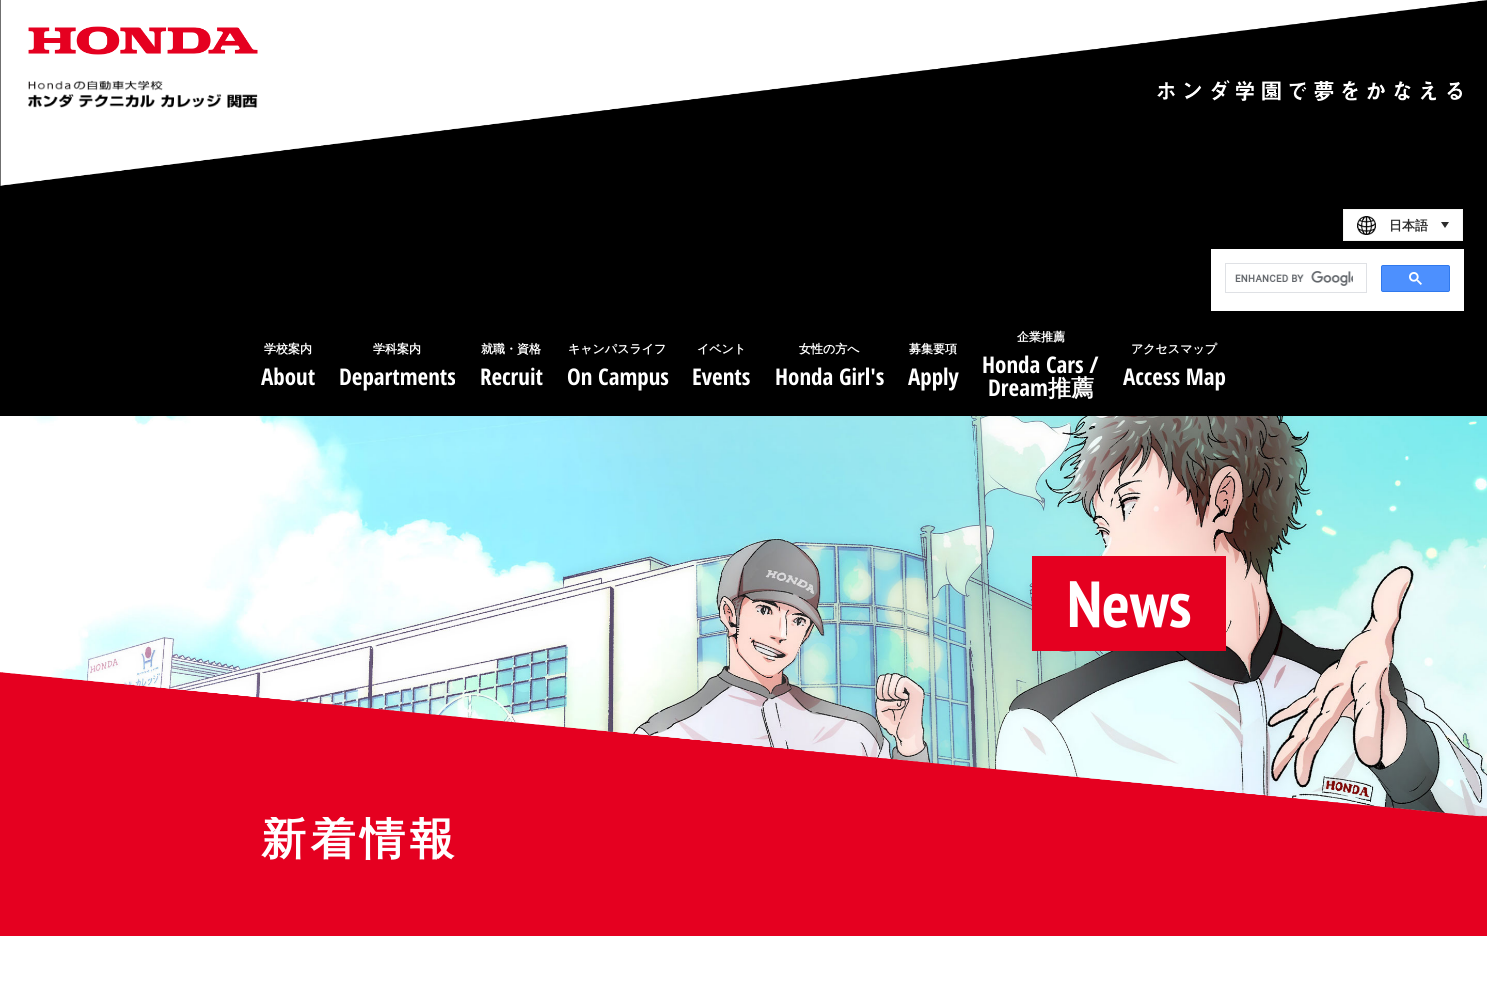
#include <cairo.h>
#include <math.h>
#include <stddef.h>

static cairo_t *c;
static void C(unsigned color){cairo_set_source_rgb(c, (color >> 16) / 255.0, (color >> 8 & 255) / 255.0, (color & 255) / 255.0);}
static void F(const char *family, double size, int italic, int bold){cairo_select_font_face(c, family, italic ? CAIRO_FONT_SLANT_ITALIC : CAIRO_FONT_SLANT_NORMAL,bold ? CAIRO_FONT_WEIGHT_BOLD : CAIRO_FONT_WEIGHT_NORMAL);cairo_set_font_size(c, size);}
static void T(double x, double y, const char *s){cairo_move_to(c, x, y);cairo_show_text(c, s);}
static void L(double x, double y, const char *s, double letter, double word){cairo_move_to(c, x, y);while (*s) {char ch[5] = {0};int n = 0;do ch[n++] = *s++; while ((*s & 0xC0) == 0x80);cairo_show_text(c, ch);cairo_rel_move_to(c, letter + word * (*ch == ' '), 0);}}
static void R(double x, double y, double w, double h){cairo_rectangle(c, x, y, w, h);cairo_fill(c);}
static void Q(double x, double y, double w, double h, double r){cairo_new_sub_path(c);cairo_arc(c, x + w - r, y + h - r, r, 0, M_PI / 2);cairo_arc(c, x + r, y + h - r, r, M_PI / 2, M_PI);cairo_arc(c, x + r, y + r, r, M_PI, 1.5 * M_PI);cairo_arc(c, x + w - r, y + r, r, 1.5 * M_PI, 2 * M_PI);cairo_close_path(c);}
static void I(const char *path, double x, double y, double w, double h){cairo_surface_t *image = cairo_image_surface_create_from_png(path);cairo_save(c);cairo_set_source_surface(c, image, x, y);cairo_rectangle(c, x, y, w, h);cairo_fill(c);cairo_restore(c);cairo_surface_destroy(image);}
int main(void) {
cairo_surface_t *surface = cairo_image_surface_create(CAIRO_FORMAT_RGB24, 1487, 990);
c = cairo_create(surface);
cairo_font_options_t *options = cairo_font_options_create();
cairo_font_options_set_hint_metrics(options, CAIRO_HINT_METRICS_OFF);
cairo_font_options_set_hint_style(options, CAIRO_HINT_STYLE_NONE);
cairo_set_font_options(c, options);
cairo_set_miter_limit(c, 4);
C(0xffffff);
cairo_paint(c);
C(0x000000);
R(0,0,1487,416);
I("1.png",0,0,1487,186);
I("2.png",28,26,230,29);
I("3.png",28,80,230,28);
I("4.png",1157,80,305,21);
C(0xffffff);
cairo_rectangle(c,1343.5,209.5,119,31);
cairo_fill_preserve(c);
C(0xf5f5f3);
cairo_set_line_width(c,1);
cairo_stroke(c);
I("5.png",1357,216,19,19);
F("WenQuanYi Zen Hei",13,0,1);
C(0x2d2d2d);
T(1389,230,"日本語");
cairo_new_path(c);
cairo_move_to(c,1441,222);
cairo_line_to(c,1449,222);
cairo_line_to(c,1445,228);
cairo_close_path(c);
cairo_fill(c);
C(0xffffff);
R(1211,249,253,62);
cairo_rectangle(c,1225.5,263.5,141,29);
C(0xdfe1e5);
cairo_stroke(c);
I("6.png",1235,271,118,15);
C(0x4d90fe);
Q(1381.5,265.5,68,26,1.5);
cairo_fill_preserve(c);
C(0x3079ed);
cairo_stroke(c);
I("7.png",1409,272,13,13);
F("WenQuanYi Zen Hei",12,0,1);
C(0xffffff);
T(264,353,"学校案内");
F("Open Sans Condensed",23,0,1);
T(261,385,"About");
F("WenQuanYi Zen Hei",12,0,1);
T(373,353,"学科案内");
F("Open Sans Condensed",23,0,1);
T(339,385,"Departments");
F("WenQuanYi Zen Hei",12,0,1);
T(481,353,"就職・資格");
F("Open Sans Condensed",23,0,1);
T(480,385,"Recruit");
F("WenQuanYi Zen Hei",12,0,1);
T(568,353,"キャンパスライフ");
F("Open Sans Condensed",23,0,1);
T(567,385,"On Campus");
F("WenQuanYi Zen Hei",12,0,1);
T(697,353,"イベント");
F("Open Sans Condensed",23,0,1);
T(692,385,"Events");
F("WenQuanYi Zen Hei",12,0,1);
T(799,353,"女性の方へ");
F("Open Sans Condensed",23,0,1);
T(775,385,"Honda Girl's");
F("WenQuanYi Zen Hei",12,0,1);
T(909,353,"募集要項");
F("Open Sans Condensed",23,0,1);
T(908,385,"Apply");
F("WenQuanYi Zen Hei",12,0,1);
T(1017,341,"企業推薦");
F("Open Sans Condensed",23,0,1);
T(982,373,"Honda Cars /");
T(988,396,"Dream");
F("WenQuanYi Zen Hei",23,0,1);
T(1048,396,"推薦");
F("WenQuanYi Zen Hei",12,0,1);
T(1131,353,"アクセスマップ");
F("Open Sans Condensed",23,0,1);
T(1123,385,"Access Map");
C(0xe50020);
R(0,815,1487,121);
F("WenQuanYi Zen Hei",45,0,1);
C(0xffffff);
L(261,854,"新着情報",4.5,0);
I("8.png",0,416,1487,400);
C(0xe50020);
R(1032,556,194,95);
F("PT Sans Narrow",65,0,1);
C(0xffffff);
T(1067,627,"News");
I("9.png",0,672,1487,145);
cairo_surface_write_to_png(surface, "o.png");
cairo_font_options_destroy(options);
cairo_destroy(c);
cairo_surface_destroy(surface);
return 0;
}
